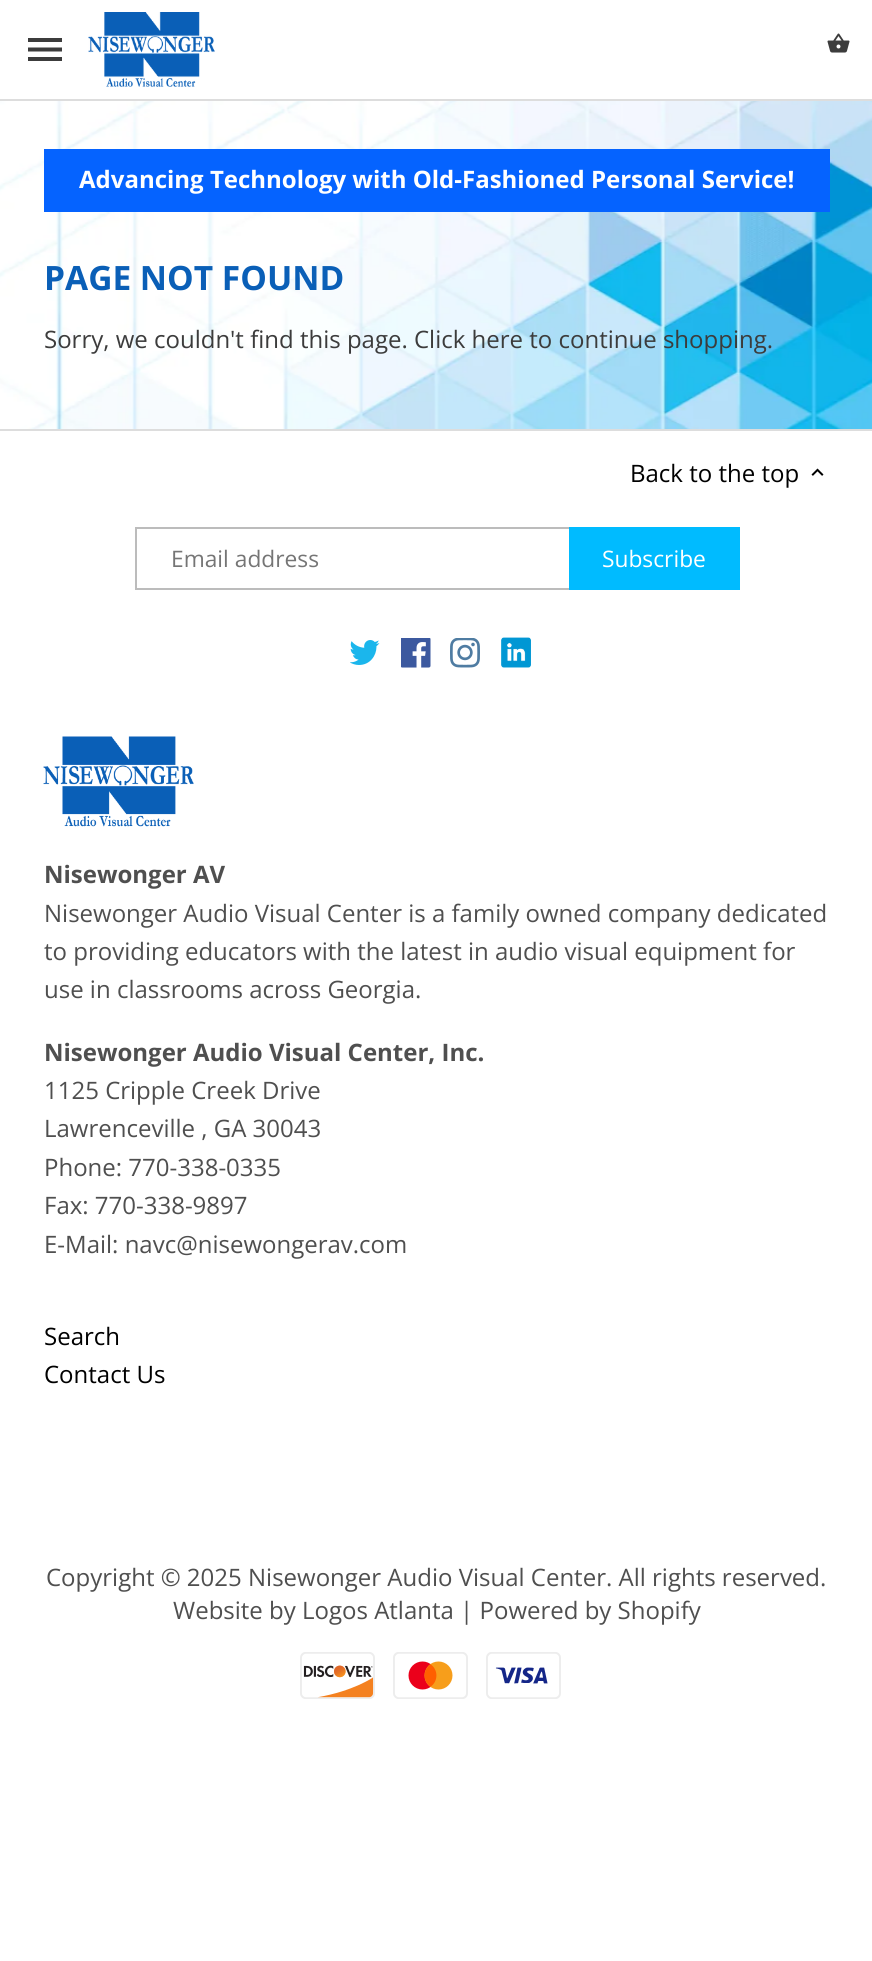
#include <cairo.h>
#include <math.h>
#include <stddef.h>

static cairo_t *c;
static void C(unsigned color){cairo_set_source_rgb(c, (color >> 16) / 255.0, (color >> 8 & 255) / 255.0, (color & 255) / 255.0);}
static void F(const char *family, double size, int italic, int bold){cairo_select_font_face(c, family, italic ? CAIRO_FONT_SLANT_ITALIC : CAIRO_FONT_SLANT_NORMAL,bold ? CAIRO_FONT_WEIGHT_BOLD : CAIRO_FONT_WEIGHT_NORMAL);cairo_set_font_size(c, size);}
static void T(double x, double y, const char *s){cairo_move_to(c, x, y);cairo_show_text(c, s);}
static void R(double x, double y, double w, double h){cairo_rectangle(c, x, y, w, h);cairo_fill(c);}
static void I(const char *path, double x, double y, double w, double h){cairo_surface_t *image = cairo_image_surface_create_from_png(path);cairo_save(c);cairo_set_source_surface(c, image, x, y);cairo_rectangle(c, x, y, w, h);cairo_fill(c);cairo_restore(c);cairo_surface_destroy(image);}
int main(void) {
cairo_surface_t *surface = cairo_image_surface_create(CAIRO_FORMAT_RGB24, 872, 1961);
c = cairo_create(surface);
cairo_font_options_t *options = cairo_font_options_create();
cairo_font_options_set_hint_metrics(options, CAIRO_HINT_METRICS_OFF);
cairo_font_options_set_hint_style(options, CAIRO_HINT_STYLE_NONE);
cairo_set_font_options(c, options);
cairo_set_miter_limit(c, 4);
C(0xffffff);
cairo_paint(c);
I("1.png",0,101,872,328);
C(0xdddddd);
R(0,99,872,2);
C(0x3c3c3c);
cairo_new_path(c);
cairo_move_to(c,28,61);
cairo_line_to(c,62,61);
cairo_line_to(c,62,57);
cairo_line_to(c,28,57);
cairo_close_path(c);
cairo_move_to(c,28,51.5);
cairo_line_to(c,62,51.5);
cairo_line_to(c,62,47.5);
cairo_line_to(c,28,47.5);
cairo_close_path(c);
cairo_move_to(c,28,38);
cairo_line_to(c,28,42);
cairo_line_to(c,62,42);
cairo_line_to(c,62,38);
cairo_close_path(c);
cairo_fill(c);
I("2.png",88,12,127,75);
I("3.png",827,33,23,20);
C(0x0563ff);
R(44,149,786,63);
F("Open Sans",24,0,1);
C(0xffffff);
T(79,188,"Advancing Technology with Old-Fashioned Personal Service!");
F("Open Sans",33.5,0,1);
C(0x0a5fb7);
T(44,290,"PAGE NOT FOUND");
F("Open Sans",24,0,0);
C(0x3c3c3c);
T(44,348,"Sorry, we couldn't find this page. Click here to continue shopping.");
C(0xdddddd);
R(0,429,872,2);
C(0x000000);
T(630,482,"Back to the top");
I("4.png",811,468,13,8);
cairo_rectangle(c,136,528,601,61);
C(0xbcbcbc);
cairo_stroke(c);
F("Open Sans",22.75,0,0);
C(0x757575);
T(171,567,"Email address");
C(0x00bbff);
R(569,527,171,63);
C(0xffffff);
T(602,567,"Subscribe");
I("5.png",350,640,30,25);
I("6.png",401,638,30,30);
I("7.png",450,638,30,30);
I("8.png",501,637,30,31);
I("9.png",43,736,151,91);
F("Open Sans",24,0,1);
C(0x4f4f4f);
T(44,883,"Nisewonger AV");
F("Open Sans",24,0,0);
T(44,922,"Nisewonger Audio Visual Center is a family owned company dedicated");
T(44,960,"to providing educators with the latest in audio visual equipment for");
T(44,998,"use in classrooms across Georgia.");
F("Open Sans",24,0,1);
T(44,1061,"Nisewonger Audio Visual Center, Inc.");
F("Open Sans",24,0,0);
T(44,1099,"1125 Cripple Creek Drive");
T(44,1137,"Lawrenceville , GA 30043");
T(44,1176,"Phone: 770-338-0335");
T(44,1214,"Fax: 770-338-9897");
T(44,1253,"E-Mail: navc@nisewongerav.com");
C(0x000000);
T(44,1345,"Search");
T(44,1383,"Contact Us");
C(0x4f4f4f);
T(46,1586,"Copyright © 2025 Nisewonger Audio Visual Center. All rights reserved.");
T(173,1619,"Website by Logos Atlanta | Powered by Shopify");
I("10.png",300,1652,75,47);
I("11.png",393,1652,75,47);
I("12.png",486,1652,75,47);
cairo_surface_write_to_png(surface, "o.png");
cairo_font_options_destroy(options);
cairo_destroy(c);
cairo_surface_destroy(surface);
return 0;
}
